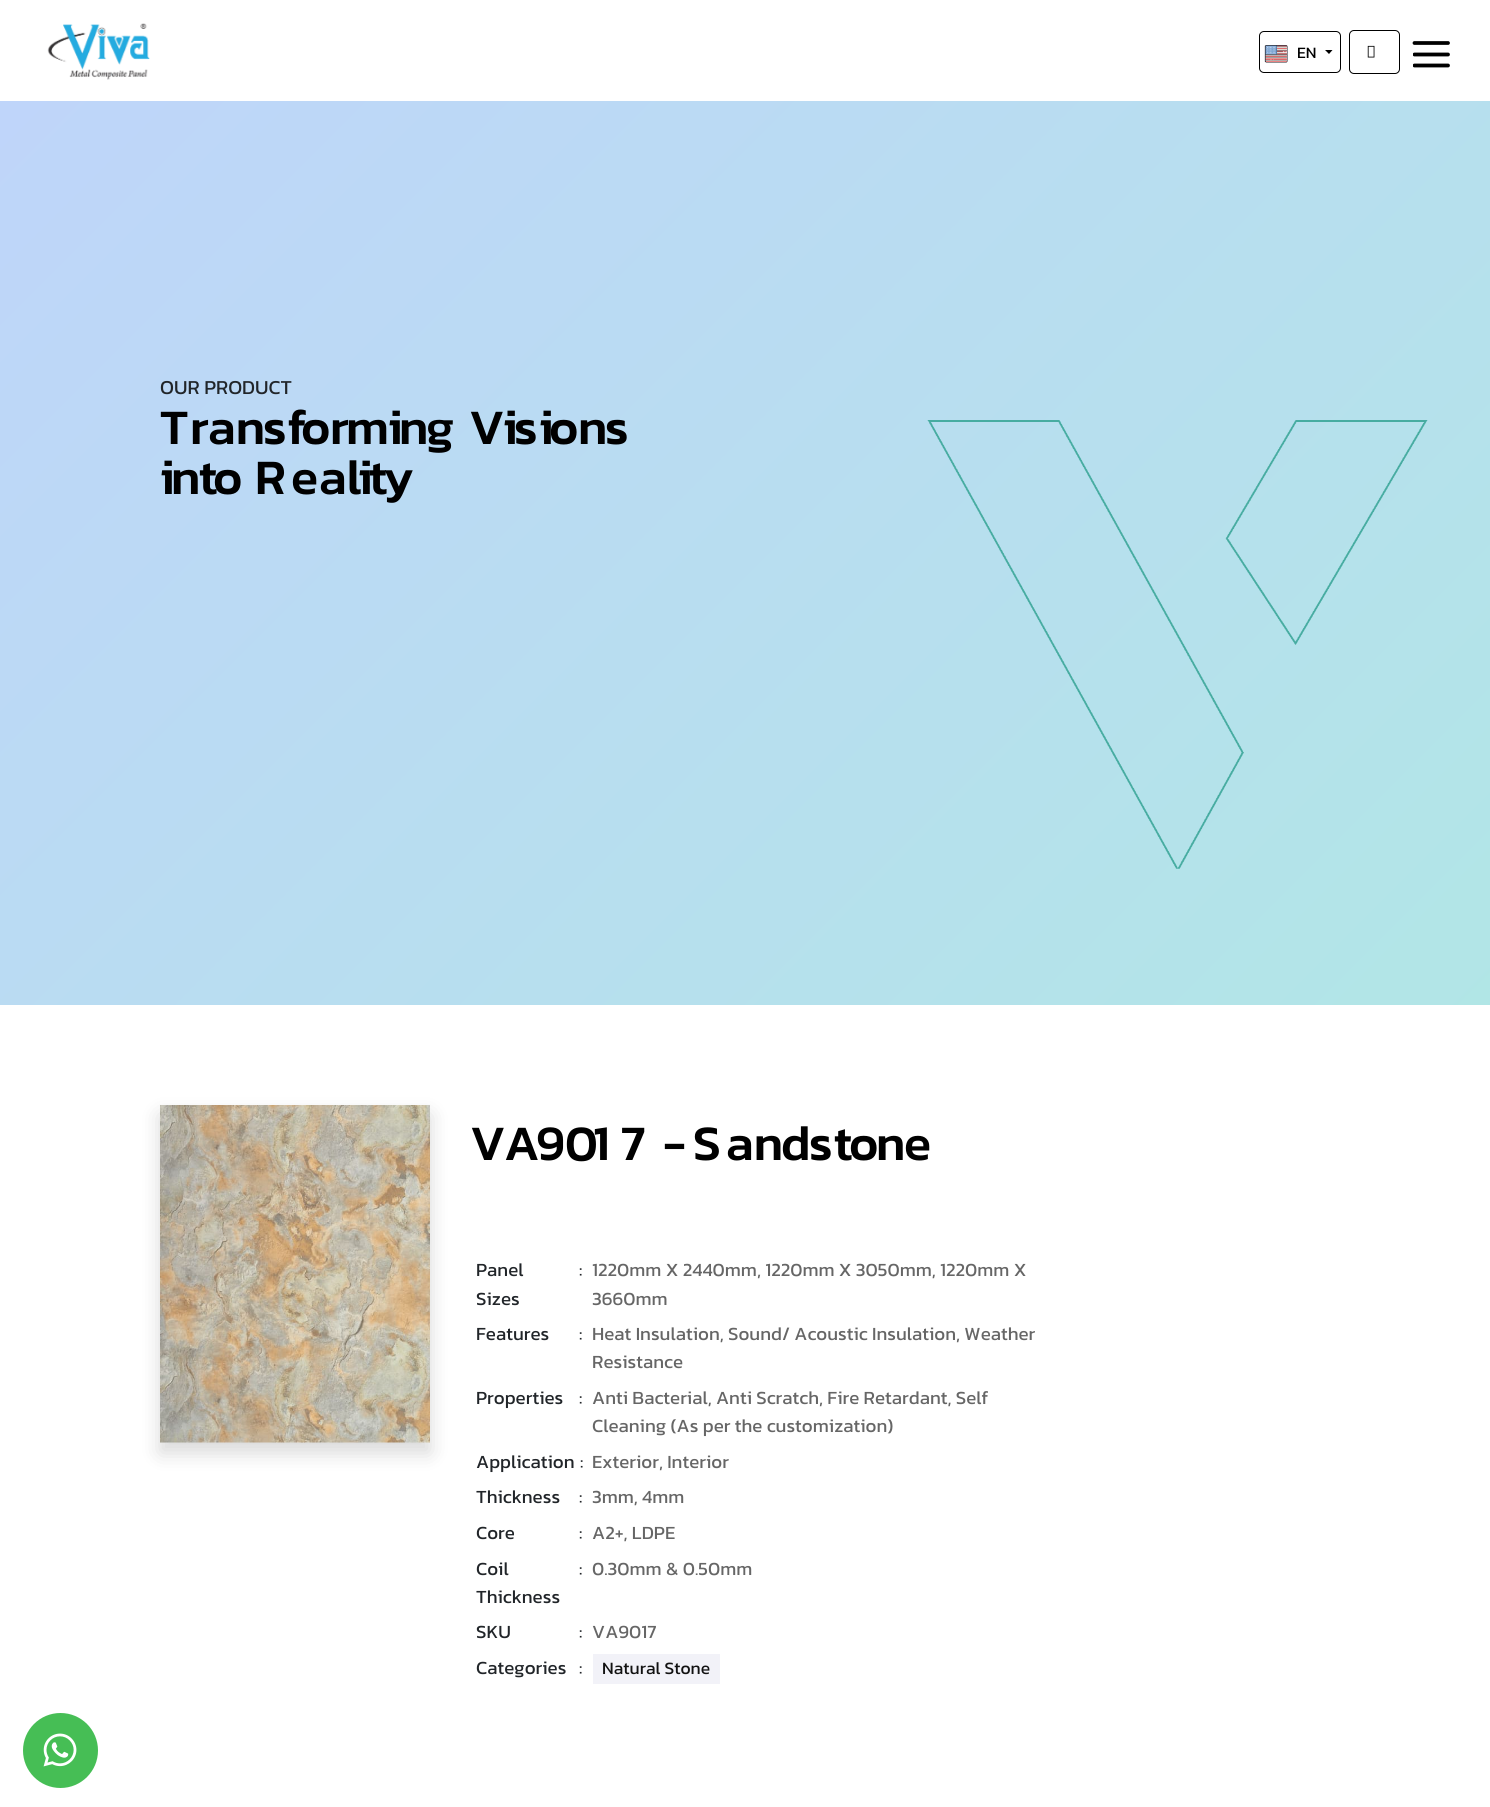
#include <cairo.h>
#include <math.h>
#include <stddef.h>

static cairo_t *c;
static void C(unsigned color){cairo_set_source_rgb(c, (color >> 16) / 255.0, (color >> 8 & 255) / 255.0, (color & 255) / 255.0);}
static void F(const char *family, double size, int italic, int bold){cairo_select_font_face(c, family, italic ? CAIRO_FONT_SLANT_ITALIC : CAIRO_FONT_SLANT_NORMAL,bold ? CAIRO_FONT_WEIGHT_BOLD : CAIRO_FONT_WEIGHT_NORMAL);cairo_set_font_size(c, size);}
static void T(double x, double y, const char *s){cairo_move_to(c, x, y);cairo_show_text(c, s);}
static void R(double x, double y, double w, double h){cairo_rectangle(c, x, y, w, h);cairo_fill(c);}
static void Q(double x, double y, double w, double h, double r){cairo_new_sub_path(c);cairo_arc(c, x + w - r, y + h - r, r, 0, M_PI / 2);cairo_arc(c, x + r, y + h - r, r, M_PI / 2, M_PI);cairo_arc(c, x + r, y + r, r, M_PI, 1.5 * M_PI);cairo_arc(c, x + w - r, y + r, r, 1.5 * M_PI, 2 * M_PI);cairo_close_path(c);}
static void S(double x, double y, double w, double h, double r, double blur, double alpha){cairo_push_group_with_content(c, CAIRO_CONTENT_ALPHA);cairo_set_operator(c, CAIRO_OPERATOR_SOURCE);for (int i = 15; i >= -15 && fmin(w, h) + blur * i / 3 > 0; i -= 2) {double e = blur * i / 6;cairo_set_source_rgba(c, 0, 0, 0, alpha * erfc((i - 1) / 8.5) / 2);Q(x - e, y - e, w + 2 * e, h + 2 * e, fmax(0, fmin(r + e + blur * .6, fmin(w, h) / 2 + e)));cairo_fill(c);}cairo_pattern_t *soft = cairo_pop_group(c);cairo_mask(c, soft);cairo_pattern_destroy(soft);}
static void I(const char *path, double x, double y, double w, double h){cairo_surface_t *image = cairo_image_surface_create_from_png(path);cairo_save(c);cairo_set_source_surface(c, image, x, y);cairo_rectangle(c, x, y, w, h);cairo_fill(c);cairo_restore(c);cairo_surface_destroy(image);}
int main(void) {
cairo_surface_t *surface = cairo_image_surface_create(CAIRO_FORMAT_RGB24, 1490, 1807);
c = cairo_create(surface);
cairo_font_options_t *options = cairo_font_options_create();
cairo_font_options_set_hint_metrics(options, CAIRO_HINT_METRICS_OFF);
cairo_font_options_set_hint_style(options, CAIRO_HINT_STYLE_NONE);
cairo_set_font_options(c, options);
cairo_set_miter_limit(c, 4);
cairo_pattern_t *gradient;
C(0xffffff);
cairo_paint(c);
I("1.png",47,23,103,57);
Q(1259.5,31.5,81,41,4.5);
C(0x000000);
cairo_set_line_width(c,1);
cairo_stroke(c);
I("2.png",1264,45,24,18);
F("Kanit",16,0,0);
T(1297,58,"EN");
cairo_new_path(c);
cairo_move_to(c,1325,50);
cairo_line_to(c,1332.5,50);
cairo_line_to(c,1329,54);
cairo_close_path(c);
cairo_fill(c);
Q(1349.5,30.5,50,43,4.5);
cairo_stroke(c);
I("3.png",1367,45,8,13);
cairo_save(c);
cairo_rectangle(c,1413,41,37,27);
cairo_clip(c);
cairo_new_path(c);
cairo_move_to(c,1414.5,54.5);
cairo_line_to(c,1448,54.5);
cairo_set_line_width(c,3.8);
cairo_set_line_cap(c,CAIRO_LINE_CAP_ROUND);
cairo_set_line_join(c,CAIRO_LINE_JOIN_ROUND);
cairo_stroke(c);
cairo_restore(c);
cairo_new_path(c);
cairo_move_to(c,1414.5,43);
cairo_line_to(c,1448,43);
cairo_set_line_width(c,3.8);
cairo_set_line_cap(c,CAIRO_LINE_CAP_ROUND);
cairo_set_line_join(c,CAIRO_LINE_JOIN_ROUND);
cairo_stroke(c);
cairo_save(c);
cairo_rectangle(c,1413,41,37,27);
cairo_clip(c);
cairo_new_path(c);
cairo_move_to(c,1414.5,65.5);
cairo_line_to(c,1448,65.5);
cairo_stroke(c);
cairo_restore(c);
gradient = cairo_pattern_create_linear(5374,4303,586,-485);
cairo_pattern_add_color_stop_rgba(gradient,0,1,0.859,0.788,1);
cairo_pattern_add_color_stop_rgba(gradient,.33,0.929,0.976,1,1);
cairo_pattern_add_color_stop_rgba(gradient,.67,0.678,0.922,0.878,1);
cairo_pattern_add_color_stop_rgba(gradient,1,0.749,0.835,0.98,1);
cairo_set_source(c,gradient);
cairo_pattern_destroy(gradient);
R(0,101,1490,904);
F("Kanit",20,0,0);
C(0x212529);
T(160,394,"OUR PRODUCT");
F("Kanit Medium",50,0,0);
C(0x000000);
T(160,444,"T");
T(190,444,"r");
T(208,444,"an");
T(263,444,"s");
T(288,444,"f");
T(301,444,"o");
T(330,444,"r");
T(346,444,"m");
T(388,444,"i");
T(399,444,"n");
T(426,444,"g");
T(469,444,"V");
T(503,444,"i");
T(514,444,"s");
T(539,444,"i");
T(549,444,"o");
T(578,444,"n");
T(605,444,"s");
T(160,494,"i");
T(171,494,"n");
T(199,494,"t");
T(213,494,"o");
T(255,494,"R");
T(291,494,"e");
T(319,494,"al");
T(358,494,"i");
T(369,494,"t");
T(383,494,"y");
I("4.png",927,420,501,449);
C(0x000000);
S(160,1115,270,338,0,10,.15);
I("5.png",160,1105,270,338);
C(0x000000);
T(470,1160,"V");
T(504,1160,"A");
T(536,1160,"90");
T(593,1160,"1 7");
T(663,1160,"-");
T(693,1160,"S");
T(726,1160,"an");
T(781,1160,"d");
T(809,1160,"s");
T(834,1160,"t");
T(849,1160,"o");
T(876,1160,"n");
T(904,1160,"e");
F("Kanit",18.75,0,0);
C(0x212529);
T(476,1276,"Panel");
T(476,1305,"Sizes");
T(579,1276,":");
C(0x666666);
T(592,1276,"1220mm X 2440mm, 1220mm X 3050mm, 1220mm X");
T(592,1305,"3660mm");
C(0x212529);
T(476,1340,"Features");
T(579,1340,":");
C(0x666666);
T(592,1340,"Heat Insulation, Sound/ Acoustic Insulation, Weather");
T(592,1368,"Resistance");
C(0x212529);
T(476,1404,"Properties");
T(579,1404,":");
C(0x666666);
T(592,1404,"Anti Bacterial, Anti Scratch, Fire Retardant, Self");
T(592,1432,"Cleaning (As per the customization)");
C(0x212529);
T(476,1468,"Application");
T(580,1468,":");
C(0x666666);
T(592,1468,"Exterior, Interior");
C(0x212529);
T(476,1503,"Thickness");
T(579,1503,":");
C(0x666666);
T(592,1503,"3mm, 4mm");
C(0x212529);
T(476,1539,"Core");
T(579,1539,":");
C(0x666666);
T(592,1539,"A2+, LDPE");
C(0x212529);
T(476,1575,"Coil");
T(476,1603,"Thickness");
T(579,1575,":");
C(0x666666);
T(592,1575,"0.30mm & 0.50mm");
C(0x212529);
T(476,1638,"SKU");
T(579,1638,":");
C(0x666666);
T(592,1638,"VA9017");
C(0x212529);
T(476,1674,"Categories");
T(579,1674,":");
C(0xf2f2f8);
R(593,1654,127,30);
F("Kanit",17.5,0,0);
C(0x121212);
T(602,1674,"Natural Stone");
C(0x46be55);
cairo_new_path(c);
cairo_arc(c,60.5,1750.5,37.5,0,2 * M_PI);
cairo_fill(c);
I("6.png",43,1733,34,34);
cairo_surface_write_to_png(surface, "o.png");
cairo_font_options_destroy(options);
cairo_destroy(c);
cairo_surface_destroy(surface);
return 0;
}
